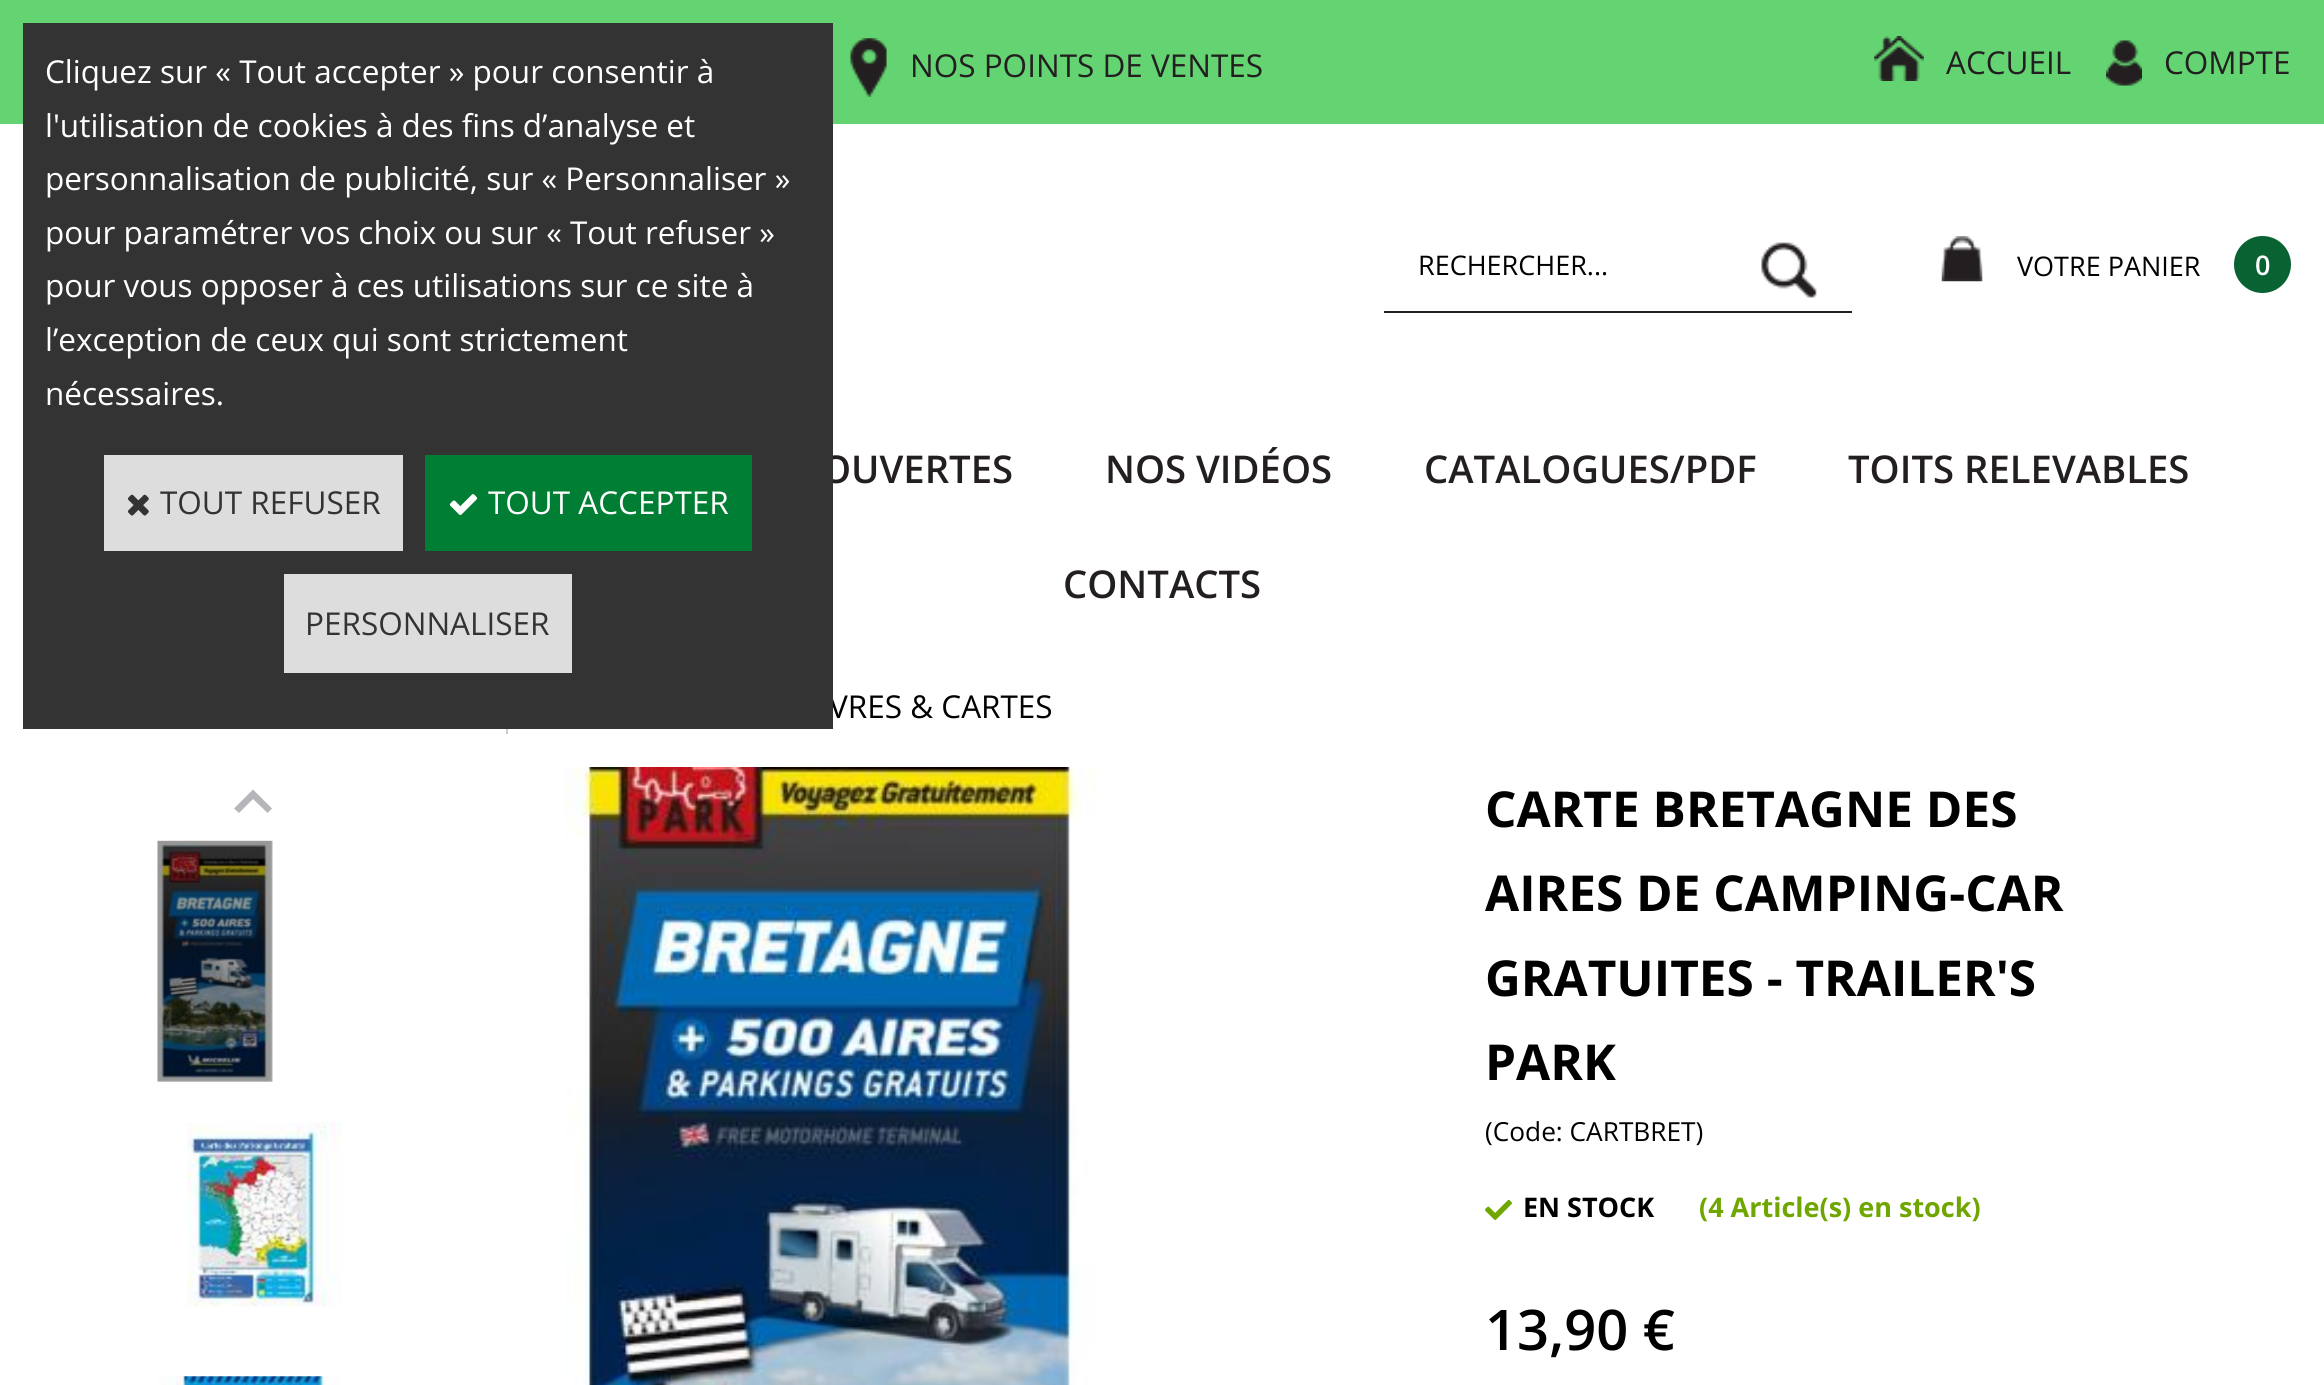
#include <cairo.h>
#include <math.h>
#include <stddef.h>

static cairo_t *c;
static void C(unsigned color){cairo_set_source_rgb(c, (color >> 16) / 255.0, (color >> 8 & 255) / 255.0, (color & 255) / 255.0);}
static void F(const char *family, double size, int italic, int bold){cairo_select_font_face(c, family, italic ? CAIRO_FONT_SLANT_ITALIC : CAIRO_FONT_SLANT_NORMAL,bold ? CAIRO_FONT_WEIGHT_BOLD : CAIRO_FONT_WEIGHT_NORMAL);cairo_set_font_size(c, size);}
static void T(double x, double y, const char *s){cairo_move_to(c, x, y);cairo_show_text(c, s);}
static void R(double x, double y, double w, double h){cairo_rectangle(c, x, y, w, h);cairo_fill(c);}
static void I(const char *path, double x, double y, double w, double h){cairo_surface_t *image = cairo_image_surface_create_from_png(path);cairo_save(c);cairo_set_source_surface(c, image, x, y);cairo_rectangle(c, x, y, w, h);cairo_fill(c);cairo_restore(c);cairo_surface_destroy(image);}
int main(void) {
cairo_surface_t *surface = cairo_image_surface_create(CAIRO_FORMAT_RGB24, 2324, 1385);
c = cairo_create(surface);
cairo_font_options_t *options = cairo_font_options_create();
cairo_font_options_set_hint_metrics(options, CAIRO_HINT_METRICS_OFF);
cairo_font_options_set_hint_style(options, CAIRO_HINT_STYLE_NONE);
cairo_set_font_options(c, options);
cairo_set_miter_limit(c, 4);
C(0xffffff);
cairo_paint(c);
C(0x63d471);
R(0,0,2324,124);
F("Open Sans SemiBold",38.25,0,0);
C(0x231f20);
T(821,483,"OUVERTES");
F("Open Sans",31.5,0,0);
C(0x000000);
T(829,718,"VRES & CARTES");
C(0x333333);
R(23,23,810,706);
C(0xffffff);
T(45,83,"Cliquez sur « Tout accepter » pour consentir à");
T(45,137,"l'utilisation de cookies à des fins d’analyse et");
T(45,190,"personnalisation de publicité, sur « Personnaliser »");
T(45,244,"pour paramétrer vos choix ou sur « Tout refuser »");
T(45,297,"pour vous opposer à ces utilisations sur ce site à");
T(45,351,"l’exception de ceux qui sont strictement");
T(45,405,"nécessaires.");
C(0xdddddd);
R(104,455,299,96);
I("1.png",128,494,21,22);
C(0x333333);
T(160,514,"TOUT REFUSER");
C(0x007e33);
R(425,455,327,96);
I("2.png",449,494,29,21);
C(0xffffff);
T(488,514,"TOUT ACCEPTER");
C(0xdddddd);
R(284,574,288,99);
C(0x333333);
T(305,635,"PERSONNALISER");
I("3.png",850,38,37,59);
C(0x231f20);
T(910,77,"NOS POINTS DE VENTES");
I("4.png",1874,36,50,45);
T(1946,74,"ACCUEIL");
I("5.png",2106,40,36,46);
T(2164,74,"COMPTE");
R(1384,311,468,2);
F("Open Sans",27,0,0);
C(0x000000);
T(1418,275,"RECHERCHER...");
I("6.png",1761,242,56,56);
I("7.png",1941,236,42,46);
T(2017,276,"VOTRE PANIER");
C(0x086232);
cairo_new_path(c);
cairo_arc(c,2262.5,264.5,28.5,0,2 * M_PI);
cairo_fill(c);
F("Open Sans SemiBold",27,0,0);
C(0xffffff);
T(2255,275,"0");
F("Open Sans SemiBold",38.25,0,0);
C(0x231f20);
T(1105,483,"NOS VIDÉOS");
T(1424,483,"CATALOGUES/PDF");
T(1848,483,"TOITS RELEVABLES");
T(1063,598,"CONTACTS");
C(0xcccccc);
R(506,729,2,5);
C(0xb5b6b9);
cairo_new_path(c);
cairo_move_to(c,253,789.5);
cairo_line_to(c,272,808.5);
cairo_line_to(c,267.5,813);
cairo_line_to(c,253,799);
cairo_close_path(c);
cairo_move_to(c,234,808.5);
cairo_line_to(c,253,789.5);
cairo_line_to(c,253,799);
cairo_line_to(c,239,813);
cairo_close_path(c);
cairo_fill(c);
I("8.png",157,840,116,242);
I("9.png",187,1122,155,185);
I("10.png",158,1376,183,9);
I("11.png",565,767,532,618);
F("Open Sans",49.5,0,1);
C(0x000000);
T(1485,827,"CARTE BRETAGNE DES");
T(1485,911,"AIRES DE CAMPING-CAR");
T(1485,996,"GRATUITES - TRAILER'S");
T(1485,1080,"PARK");
F("Open Sans",26.25,0,0);
T(1485,1141,"(Code: CARTBRET)");
I("12.png",1485,1199,27,21);
F("Open Sans",27,0,1);
T(1523,1217,"EN STOCK");
C(0x6fa600);
T(1699,1217,"(4 Article(s) en stock)");
F("Open Sans SemiBold",56,0,0);
C(0x000000);
T(1485,1350,"13,90 €");
cairo_surface_write_to_png(surface, "o.png");
cairo_font_options_destroy(options);
cairo_destroy(c);
cairo_surface_destroy(surface);
return 0;
}
